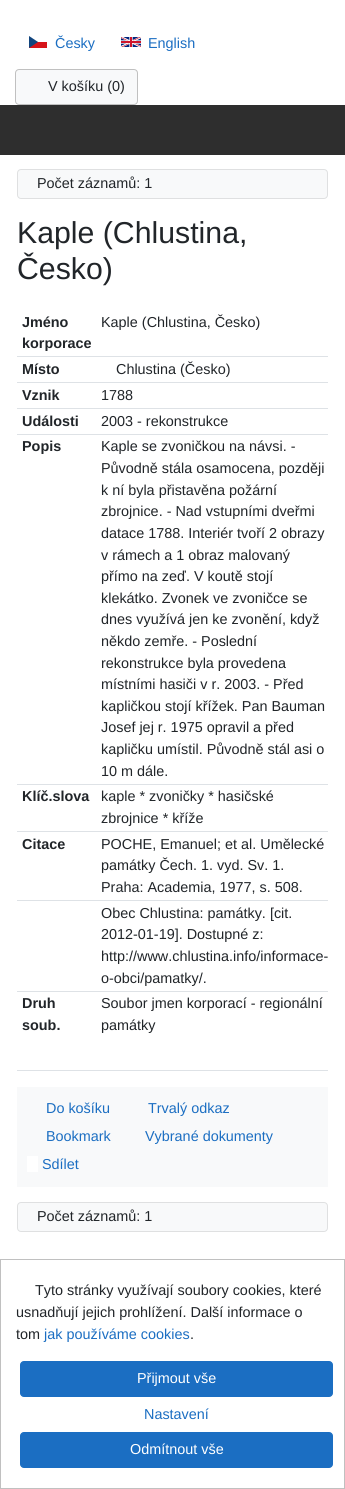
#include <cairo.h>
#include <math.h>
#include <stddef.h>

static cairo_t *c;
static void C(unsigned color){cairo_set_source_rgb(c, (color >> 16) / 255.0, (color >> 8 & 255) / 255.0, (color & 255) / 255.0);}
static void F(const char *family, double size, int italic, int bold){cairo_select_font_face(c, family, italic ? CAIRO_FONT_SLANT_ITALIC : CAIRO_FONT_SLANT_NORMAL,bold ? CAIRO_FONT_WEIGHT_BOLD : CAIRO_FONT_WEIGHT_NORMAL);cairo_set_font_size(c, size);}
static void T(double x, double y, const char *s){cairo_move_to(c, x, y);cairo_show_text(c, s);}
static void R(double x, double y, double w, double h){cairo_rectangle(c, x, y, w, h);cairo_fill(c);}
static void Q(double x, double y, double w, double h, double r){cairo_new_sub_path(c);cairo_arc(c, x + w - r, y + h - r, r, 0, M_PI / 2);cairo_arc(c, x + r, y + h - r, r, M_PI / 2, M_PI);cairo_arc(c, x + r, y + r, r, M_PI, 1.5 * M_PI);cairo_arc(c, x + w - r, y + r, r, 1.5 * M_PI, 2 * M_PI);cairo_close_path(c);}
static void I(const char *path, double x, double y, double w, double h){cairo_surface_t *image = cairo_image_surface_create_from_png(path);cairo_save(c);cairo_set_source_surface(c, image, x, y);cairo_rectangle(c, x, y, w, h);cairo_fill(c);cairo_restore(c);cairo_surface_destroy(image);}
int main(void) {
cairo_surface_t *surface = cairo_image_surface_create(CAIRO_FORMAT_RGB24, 345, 1489);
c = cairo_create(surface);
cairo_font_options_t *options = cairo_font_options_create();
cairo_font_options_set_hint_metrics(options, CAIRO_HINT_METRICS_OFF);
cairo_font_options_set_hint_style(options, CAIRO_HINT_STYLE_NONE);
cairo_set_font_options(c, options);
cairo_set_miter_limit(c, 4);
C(0xffffff);
cairo_paint(c);
I("1.png",29,36,18,12);
F("Liberation Sans",14.4,0,0);
C(0x1b6ec2);
T(55,48,"Česky");
I("2.png",121,37,20,10);
T(148,48,"English");
C(0xf8f9fa);
Q(15.5,69.5,122,35,3.5);
cairo_fill_preserve(c);
C(0xc0c0c0);
cairo_set_line_width(c,1);
cairo_stroke(c);
C(0x212529);
T(48,91,"V košíku (0)");
C(0x2e2e2e);
R(0,105,345,50);
C(0xf8f9fa);
Q(17.5,169.5,310,29,3.5);
cairo_fill_preserve(c);
C(0xdfe0e1);
cairo_stroke(c);
C(0x212529);
T(37,188,"Počet záznamů: 1");
F("Liberation Sans",30.25,0,0);
T(17,243,"Kaple (Chlustina,");
T(17,279,"Česko)");
F("Liberation Sans",14.4,0,1);
T(22,327,"Jméno");
T(22,348,"korporace");
F("Liberation Sans",14.4,0,0);
T(101,327,"Kaple (Chlustina, Česko)");
F("Liberation Sans",14.4,0,1);
T(22,374,"Místo");
C(0xdee2e6);
R(17,356,311,1);
F("Liberation Sans",14.4,0,0);
C(0x212529);
T(116,374,"Chlustina (Česko)");
F("Liberation Sans",14.4,0,1);
T(22,400,"Vznik");
C(0xdee2e6);
R(17,382,311,1);
F("Liberation Sans",14.4,0,0);
C(0x212529);
T(101,400,"1788");
F("Liberation Sans",14.4,0,1);
T(22,426,"Události");
C(0xdee2e6);
R(17,408,311,1);
F("Liberation Sans",14.4,0,0);
C(0x212529);
T(101,426,"2003 - rekonstrukce");
F("Liberation Sans",14.4,0,1);
T(22,451,"Popis");
C(0xdee2e6);
R(17,434,311,1);
F("Liberation Sans",14.4,0,0);
C(0x212529);
T(101,451,"Kaple se zvoničkou na návsi. -");
T(101,473,"Původně stála osamocena, později");
T(101,495,"k ní byla přistavěna požární");
T(101,516,"zbrojnice. - Nad vstupními dveřmi");
T(101,538,"datace 1788. Interiér tvoří 2 obrazy");
T(101,560,"v rámech a 1 obraz malovaný");
T(101,581,"přímo na zeď. V koutě stojí");
T(101,603,"klekátko. Zvonek ve zvoničce se");
T(101,624,"dnes využívá jen ke zvonění, když");
T(101,646,"někdo zemře. - Poslední");
T(101,668,"rekonstrukce byla provedena");
T(101,689,"místními hasiči v r. 2003. - Před");
T(101,711,"kapličkou stojí křížek. Pan Bauman");
T(101,732,"Josef jej r. 1975 opravil a před");
T(101,754,"kapličku umístil. Původně stál asi o");
T(101,776,"10 m dále.");
F("Liberation Sans",14.4,0,1);
T(22,801,"Klíč.slova");
C(0xdee2e6);
R(17,784,311,1);
F("Liberation Sans",14.4,0,0);
C(0x212529);
T(101,801,"kaple * zvoničky * hasičské");
T(101,823,"zbrojnice * kříže");
F("Liberation Sans",14.4,0,1);
T(22,849,"Citace");
C(0xdee2e6);
R(17,831,311,1);
F("Liberation Sans",14.4,0,0);
C(0x212529);
T(101,849,"POCHE, Emanuel; et al. Umělecké");
T(101,870,"památky Čech. 1. vyd. Sv. 1.");
T(101,892,"Praha: Academia, 1977, s. 508.");
C(0xdee2e6);
R(17,900,311,1);
C(0x212529);
T(101,918,"Obec Chlustina: památky. [cit.");
T(101,939,"2012-01-19]. Dostupné z:");
T(101,961,"http://www.chlustina.info/informace-");
T(101,983,"o-obci/pamatky/.");
F("Liberation Sans",14.4,0,1);
T(22,1008,"Druh");
T(22,1030,"soub.");
C(0xdee2e6);
R(17,991,311,1);
F("Liberation Sans",14.4,0,0);
C(0x212529);
T(101,1008,"Soubor jmen korporací - regionální");
T(101,1030,"památky");
C(0xdee2e6);
R(17,1070,311,1);
C(0xf8f9fa);
R(17,1087,311,100);
C(0x1b6ec2);
T(46,1113,"Do košíku");
T(148,1113,"Trvalý odkaz");
T(46,1141,"Bookmark");
T(145,1141,"Vybrané dokumenty");
T(42,1169,"Sdílet");
C(0xffffff);
R(27,1156,11,16);
C(0xf8f9fa);
Q(17.5,1202.5,310,29,3.5);
cairo_fill_preserve(c);
C(0xdfe0e1);
cairo_stroke(c);
C(0x212529);
T(37,1221,"Počet záznamů: 1");
cairo_rectangle(c,.5,1259.5,344,229);
C(0xc0c0c0);
cairo_stroke(c);
C(0x212529);
T(35,1295,"Tyto stránky využívají soubory cookies, které");
T(16,1317,"usnadňují jejich prohlížení. Další informace o");
T(16,1339,"tom");
C(0x1b6ec2);
T(44,1339,"jak používáme cookies");
C(0x212529);
T(190,1339,".");
C(0x1b6ec2);
Q(20.5,1361.5,312,35,3.5);
cairo_fill_preserve(c);
cairo_stroke(c);
C(0xffffff);
T(137,1383,"Přijmout vše");
C(0x1b6ec2);
T(144,1419,"Nastavení");
Q(20.5,1432.5,312,35,3.5);
cairo_fill_preserve(c);
cairo_stroke(c);
C(0xffffff);
T(130,1454,"Odmítnout vše");
cairo_surface_write_to_png(surface, "o.png");
cairo_font_options_destroy(options);
cairo_destroy(c);
cairo_surface_destroy(surface);
return 0;
}
